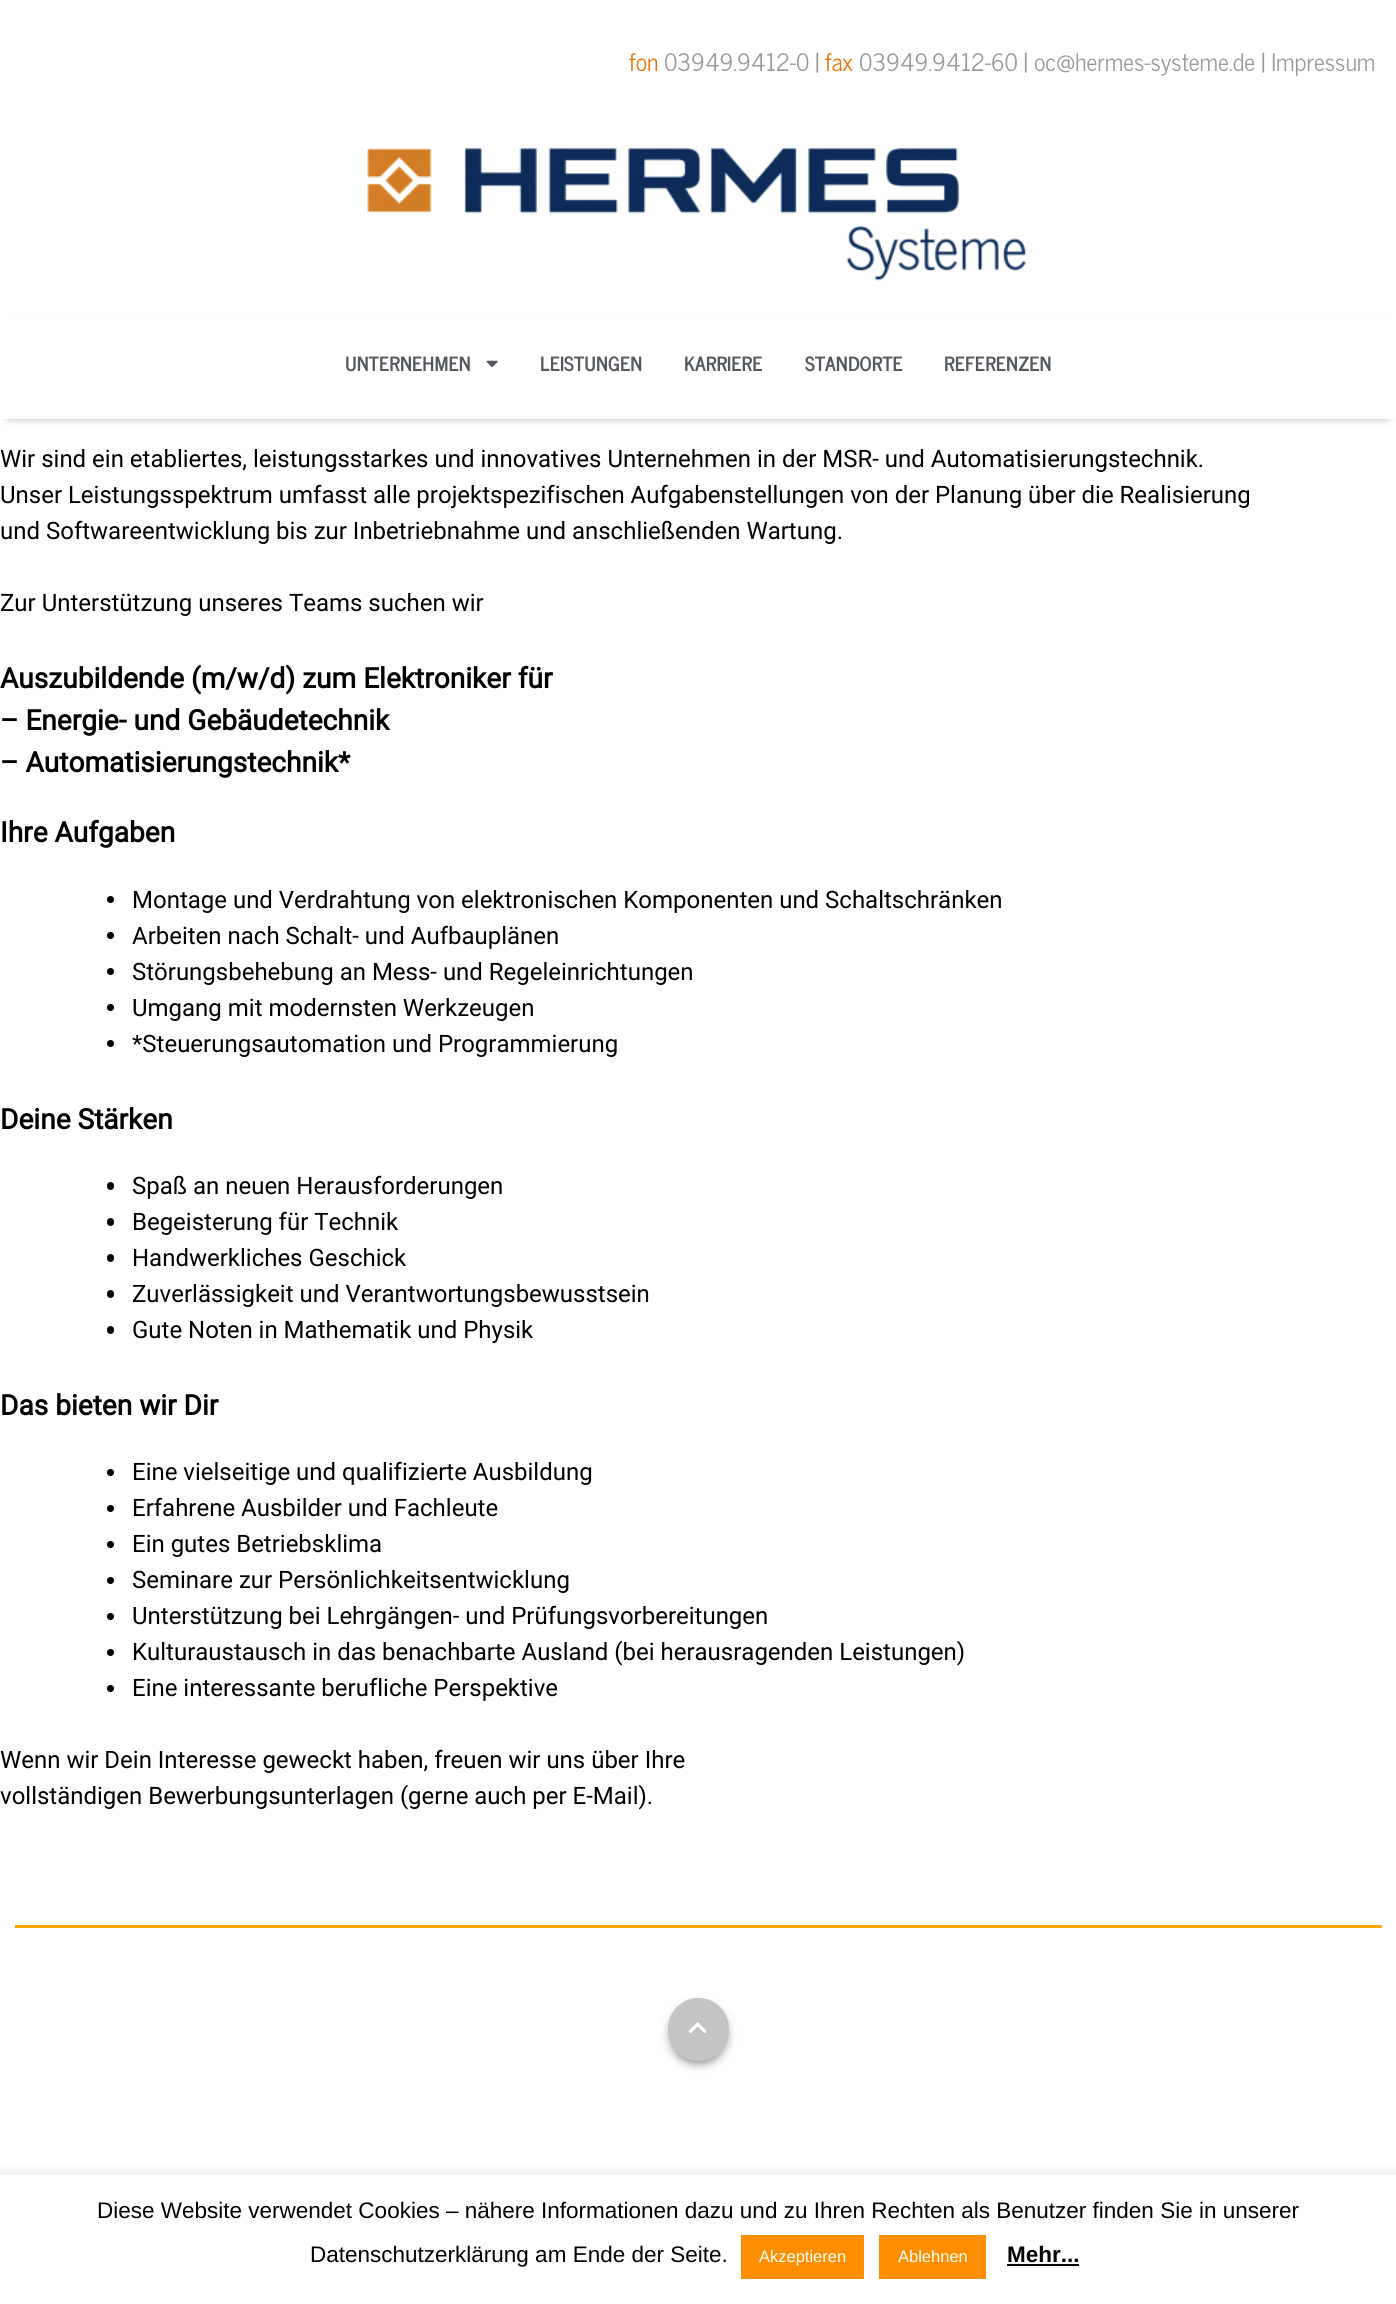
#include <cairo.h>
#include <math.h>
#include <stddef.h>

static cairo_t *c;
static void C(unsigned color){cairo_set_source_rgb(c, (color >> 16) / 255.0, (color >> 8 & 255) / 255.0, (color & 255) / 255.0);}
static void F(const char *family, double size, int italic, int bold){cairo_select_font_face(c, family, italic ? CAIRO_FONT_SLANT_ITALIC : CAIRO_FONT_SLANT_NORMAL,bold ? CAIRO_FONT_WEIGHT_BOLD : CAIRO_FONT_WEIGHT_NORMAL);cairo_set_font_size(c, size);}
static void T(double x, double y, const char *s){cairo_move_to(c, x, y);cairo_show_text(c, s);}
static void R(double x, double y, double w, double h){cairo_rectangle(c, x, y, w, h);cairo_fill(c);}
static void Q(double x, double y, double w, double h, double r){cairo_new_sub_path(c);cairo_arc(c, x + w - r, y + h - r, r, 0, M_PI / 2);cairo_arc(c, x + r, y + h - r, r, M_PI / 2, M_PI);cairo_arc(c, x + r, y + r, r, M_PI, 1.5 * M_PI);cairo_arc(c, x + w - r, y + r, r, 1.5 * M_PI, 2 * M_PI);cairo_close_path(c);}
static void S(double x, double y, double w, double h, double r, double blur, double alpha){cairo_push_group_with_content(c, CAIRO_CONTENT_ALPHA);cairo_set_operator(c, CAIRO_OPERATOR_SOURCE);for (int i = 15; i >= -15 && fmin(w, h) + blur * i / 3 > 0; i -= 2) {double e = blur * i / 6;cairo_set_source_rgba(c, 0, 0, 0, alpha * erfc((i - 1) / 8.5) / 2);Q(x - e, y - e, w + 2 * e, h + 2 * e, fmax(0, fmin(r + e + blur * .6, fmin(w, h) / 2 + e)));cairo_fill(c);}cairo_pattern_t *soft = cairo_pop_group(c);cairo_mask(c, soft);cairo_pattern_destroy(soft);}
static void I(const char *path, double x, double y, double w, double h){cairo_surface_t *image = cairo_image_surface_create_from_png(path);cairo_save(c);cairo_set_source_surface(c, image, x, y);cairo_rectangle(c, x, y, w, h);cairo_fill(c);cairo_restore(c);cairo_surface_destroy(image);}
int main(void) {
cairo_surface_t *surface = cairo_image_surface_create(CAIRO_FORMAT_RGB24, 1396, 2304);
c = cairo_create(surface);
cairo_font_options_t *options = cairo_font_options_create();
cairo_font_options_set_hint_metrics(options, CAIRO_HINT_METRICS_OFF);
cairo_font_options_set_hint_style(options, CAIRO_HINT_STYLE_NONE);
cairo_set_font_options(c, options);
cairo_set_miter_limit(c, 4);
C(0xffffff);
cairo_paint(c);
F("News Cycle",24,0,0);
C(0xf07000);
T(629,71,"fon");
C(0x999999);
T(664,71,"03949.9412-0 |");
C(0xf07000);
T(825,71,"fax");
C(0x999999);
T(859,71,"03949.9412-60 | oc@hermes-systeme.de | Impressum");
I("1.png",367,148,660,133);
C(0x000000);
S(9,326,1379,90,0,5,.5);
C(0xffffff);
R(0,316,1396,103);
F("News Cycle",19.5,0,1);
C(0x54595f);
T(345,371,"UNTERNEHMEN");
I("2.png",486,360,12,8);
T(540,371,"LEISTUNGEN");
T(684,371,"KARRIERE");
T(805,371,"STANDORTE");
T(944,371,"REFERENZEN");
F("Roboto",24,0,0);
C(0x000000);
T(0,467,"Wir sind ein etabliertes, leistungsstarkes und innovatives Unternehmen in der MSR- und Automatisierungstechnik.");
T(0,503,"Unser Leistungsspektrum umfasst alle projektspezifischen Aufgabenstellungen von der Planung über die Realisierung");
T(0,539,"und Softwareentwicklung bis zur Inbetriebnahme und anschließenden Wartung.");
T(0,611,"Zur Unterstützung unseres Teams suchen wir");
F("Roboto",28.1,0,1);
T(0,688,"Auszubildende (m/w/d) zum Elektroniker für");
T(0,730,"– Energie- und Gebäudetechnik");
T(0,772,"– Automatisierungstechnik*");
T(0,842,"Ihre Aufgaben");
cairo_new_path(c);
cairo_arc(c,110.5,899.5,3.5,0,2 * M_PI);
cairo_fill(c);
F("Roboto",24,0,0);
T(132,908,"Montage und Verdrahtung von elektronischen Komponenten und Schaltschränken");
cairo_new_path(c);
cairo_arc(c,110.5,935.5,3.5,0,2 * M_PI);
cairo_fill(c);
T(132,944,"Arbeiten nach Schalt- und Aufbauplänen");
cairo_new_path(c);
cairo_arc(c,110.5,971.5,3.5,0,2 * M_PI);
cairo_fill(c);
T(132,980,"Störungsbehebung an Mess- und Regeleinrichtungen");
cairo_new_path(c);
cairo_arc(c,110.5,1007.5,3.5,0,2 * M_PI);
cairo_fill(c);
T(132,1016,"Umgang mit modernsten Werkzeugen");
cairo_new_path(c);
cairo_arc(c,110.5,1043.5,3.5,0,2 * M_PI);
cairo_fill(c);
T(132,1052,"*Steuerungsautomation und Programmierung");
F("Roboto",28.1,0,1);
T(0,1129,"Deine Stärken");
Q(107,1182,7,8,3.5);
cairo_fill(c);
F("Roboto",24,0,0);
T(132,1194,"Spaß an neuen Herausforderungen");
Q(107,1218,7,8,3.5);
cairo_fill(c);
T(132,1230,"Begeisterung für Technik");
Q(107,1254,7,8,3.5);
cairo_fill(c);
T(132,1266,"Handwerkliches Geschick");
Q(107,1290,7,8,3.5);
cairo_fill(c);
T(132,1302,"Zuverlässigkeit und Verantwortungsbewusstsein");
Q(107,1326,7,8,3.5);
cairo_fill(c);
T(132,1338,"Gute Noten in Mathematik und Physik");
F("Roboto",28.1,0,1);
T(0,1415,"Das bieten wir Dir");
cairo_new_path(c);
cairo_arc(c,110.5,1472.5,3.5,0,2 * M_PI);
cairo_fill(c);
F("Roboto",24,0,0);
T(132,1480,"Eine vielseitige und qualifizierte Ausbildung");
cairo_new_path(c);
cairo_arc(c,110.5,1508.5,3.5,0,2 * M_PI);
cairo_fill(c);
T(132,1516,"Erfahrene Ausbilder und Fachleute");
cairo_new_path(c);
cairo_arc(c,110.5,1544.5,3.5,0,2 * M_PI);
cairo_fill(c);
T(132,1552,"Ein gutes Betriebsklima");
cairo_new_path(c);
cairo_arc(c,110.5,1580.5,3.5,0,2 * M_PI);
cairo_fill(c);
T(132,1588,"Seminare zur Persönlichkeitsentwicklung");
cairo_new_path(c);
cairo_arc(c,110.5,1616.5,3.5,0,2 * M_PI);
cairo_fill(c);
T(132,1624,"Unterstützung bei Lehrgängen- und Prüfungsvorbereitungen");
cairo_new_path(c);
cairo_arc(c,110.5,1652.5,3.5,0,2 * M_PI);
cairo_fill(c);
T(132,1660,"Kulturaustausch in das benachbarte Ausland (bei herausragenden Leistungen)");
cairo_new_path(c);
cairo_arc(c,110.5,1688.5,3.5,0,2 * M_PI);
cairo_fill(c);
T(132,1696,"Eine interessante berufliche Perspektive");
T(0,1768,"Wenn wir Dein Interesse geweckt haben, freuen wir uns über Ihre");
T(0,1804,"vollständigen Bewerbungsunterlagen (gerne auch per E-Mail).");
C(0xffa800);
R(15,1925,1367,3);
C(0x000000);
S(671,2006,55,57,27.5,5,.5);
C(0xc4c4c4);
Q(668,1998,61,63,30.5);
cairo_fill(c);
I("3.png",688,2022,19,11);
cairo_save(c);
cairo_rectangle(c,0,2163,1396,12);
cairo_clip(c);
C(0xacabab);
S(0,2174,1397,129,0,7.5,.3);
cairo_restore(c);
F("Liberation Sans",22.5,0,0);
C(0x000000);
T(97,2218,"Diese Website verwendet Cookies – nähere Informationen dazu und zu Ihren Rechten als Benutzer finden Sie in unserer");
T(310,2262,"Datenschutzerklärung am Ende der Seite.");
C(0xff8f00);
R(741,2235,123,44);
F("Liberation Sans",16.5,0,0);
C(0xffffff);
T(759,2262,"Akzeptieren");
C(0xff8f00);
R(879,2235,107,44);
C(0xffffff);
T(898,2262,"Ablehnen");
F("Liberation Sans",22.5,0,1);
C(0x000000);
T(1007,2262,"Mehr...");
R(1007,2264,72,2);
cairo_surface_write_to_png(surface, "o.png");
cairo_font_options_destroy(options);
cairo_destroy(c);
cairo_surface_destroy(surface);
return 0;
}
